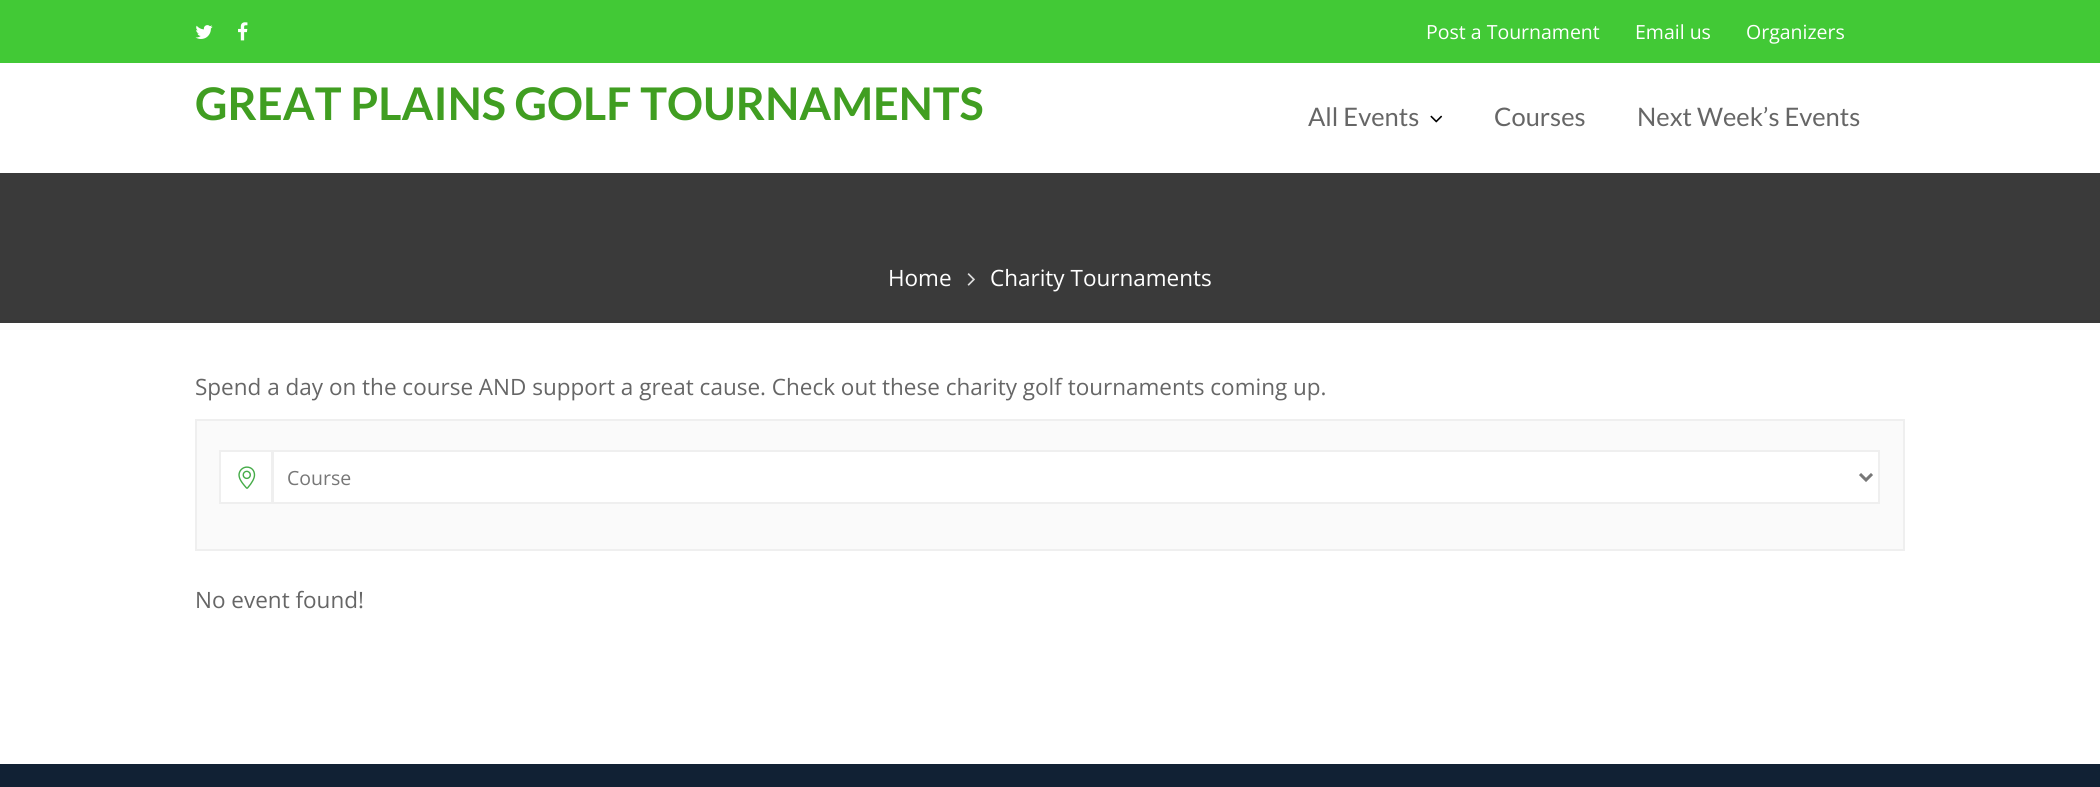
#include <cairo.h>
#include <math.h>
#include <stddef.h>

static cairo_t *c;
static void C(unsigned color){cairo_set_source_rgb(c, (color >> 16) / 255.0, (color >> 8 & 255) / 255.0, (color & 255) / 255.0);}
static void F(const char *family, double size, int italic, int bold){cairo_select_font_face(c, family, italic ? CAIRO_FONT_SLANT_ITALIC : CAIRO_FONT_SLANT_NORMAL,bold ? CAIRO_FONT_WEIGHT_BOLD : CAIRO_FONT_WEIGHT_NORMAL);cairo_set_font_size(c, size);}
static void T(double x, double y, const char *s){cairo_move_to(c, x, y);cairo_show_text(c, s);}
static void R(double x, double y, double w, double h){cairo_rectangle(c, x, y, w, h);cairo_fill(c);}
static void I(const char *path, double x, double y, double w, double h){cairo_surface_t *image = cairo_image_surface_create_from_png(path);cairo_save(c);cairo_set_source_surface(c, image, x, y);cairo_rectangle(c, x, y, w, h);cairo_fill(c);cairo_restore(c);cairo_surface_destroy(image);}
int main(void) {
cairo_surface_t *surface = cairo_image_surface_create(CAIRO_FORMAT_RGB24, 2100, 787);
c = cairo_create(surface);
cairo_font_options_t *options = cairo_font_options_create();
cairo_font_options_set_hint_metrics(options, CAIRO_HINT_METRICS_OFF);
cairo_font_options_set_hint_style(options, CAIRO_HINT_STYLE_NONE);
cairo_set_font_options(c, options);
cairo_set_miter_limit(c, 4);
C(0xffffff);
cairo_paint(c);
C(0x42c936);
R(0,0,2100,63);
I("1.png",195,25,18,14);
I("2.png",238,22,10,19);
F("Open Sans",19.5,0,0);
C(0xffffff);
T(1426,39,"Post a Tournament");
T(1635,39,"Email us");
T(1746,39,"Organizers");
F("Lato",45,0,1);
C(0x409e21);
T(195,120,"GREAT PLAINS GOLF TOURNAMENTS");
F("Lato",25.5,0,0);
C(0x666666);
T(1308,126,"All Events");
I("3.png",1430,115,13,8);
T(1494,126,"Courses");
T(1637,126,"Next Week’s Events");
C(0x3a3a3a);
R(0,173,2100,150);
F("Open Sans",22.5,0,0);
C(0xffffff);
T(888,286,"Home");
I("4.png",967,273,8,13);
T(990,286,"Charity Tournaments");
C(0x666666);
T(195,395,"Spend a day on the course AND support a great cause. Check out these charity golf tournaments coming up.");
C(0xfafafa);
cairo_rectangle(c,196,420,1708,130);
cairo_fill_preserve(c);
C(0xefefef);
cairo_stroke(c);
C(0xffffff);
cairo_rectangle(c,220,451,52,52);
cairo_fill_preserve(c);
C(0xefefef);
cairo_stroke(c);
I("5.png",238,466,18,23);
C(0xffffff);
cairo_rectangle(c,273,451,1606,52);
cairo_fill_preserve(c);
C(0xefefef);
cairo_stroke(c);
cairo_new_path(c);
cairo_move_to(c,1860,474);
cairo_line_to(c,1866,480);
cairo_line_to(c,1872,474);
C(0x777777);
cairo_set_line_width(c,3);
cairo_stroke(c);
F("Open Sans",19.5,0,0);
T(287,485,"Course");
F("Open Sans",22.5,0,0);
C(0x666666);
T(195,608,"No event found!");
C(0x112134);
R(0,764,2100,23);
cairo_surface_write_to_png(surface, "o.png");
cairo_font_options_destroy(options);
cairo_destroy(c);
cairo_surface_destroy(surface);
return 0;
}
